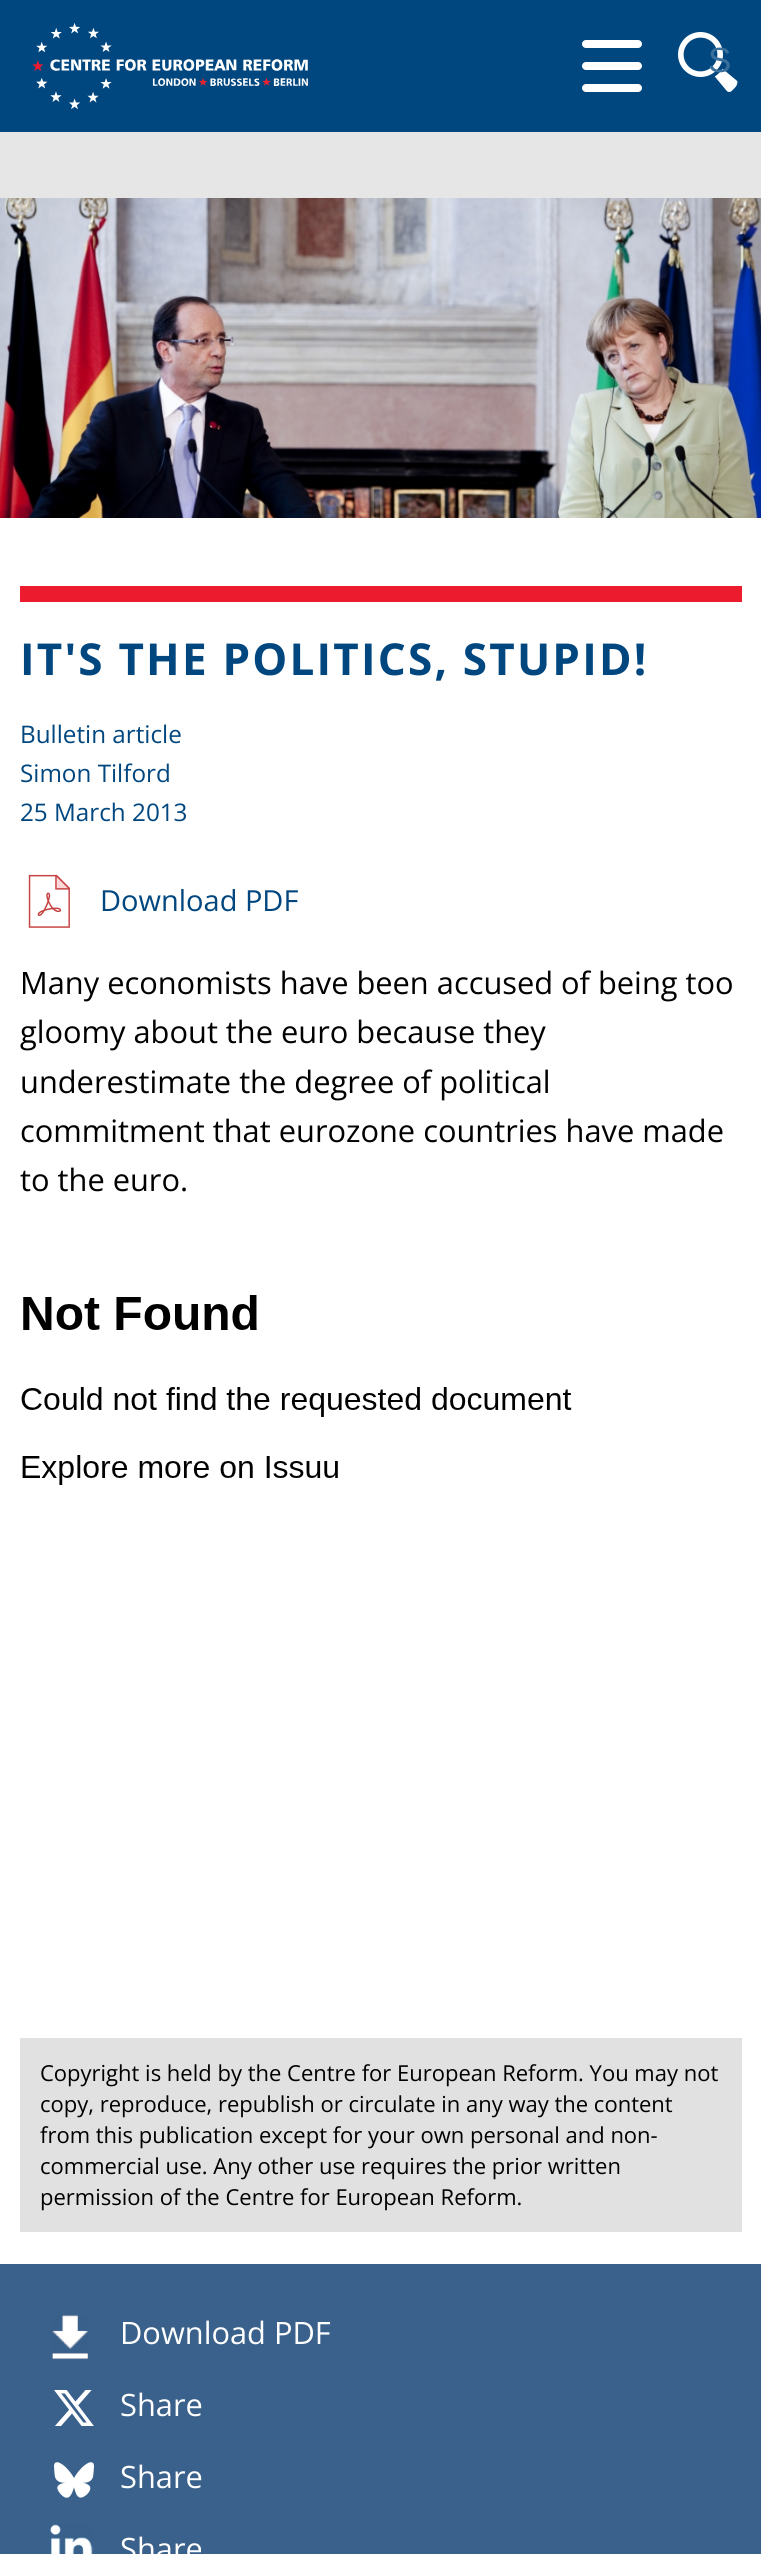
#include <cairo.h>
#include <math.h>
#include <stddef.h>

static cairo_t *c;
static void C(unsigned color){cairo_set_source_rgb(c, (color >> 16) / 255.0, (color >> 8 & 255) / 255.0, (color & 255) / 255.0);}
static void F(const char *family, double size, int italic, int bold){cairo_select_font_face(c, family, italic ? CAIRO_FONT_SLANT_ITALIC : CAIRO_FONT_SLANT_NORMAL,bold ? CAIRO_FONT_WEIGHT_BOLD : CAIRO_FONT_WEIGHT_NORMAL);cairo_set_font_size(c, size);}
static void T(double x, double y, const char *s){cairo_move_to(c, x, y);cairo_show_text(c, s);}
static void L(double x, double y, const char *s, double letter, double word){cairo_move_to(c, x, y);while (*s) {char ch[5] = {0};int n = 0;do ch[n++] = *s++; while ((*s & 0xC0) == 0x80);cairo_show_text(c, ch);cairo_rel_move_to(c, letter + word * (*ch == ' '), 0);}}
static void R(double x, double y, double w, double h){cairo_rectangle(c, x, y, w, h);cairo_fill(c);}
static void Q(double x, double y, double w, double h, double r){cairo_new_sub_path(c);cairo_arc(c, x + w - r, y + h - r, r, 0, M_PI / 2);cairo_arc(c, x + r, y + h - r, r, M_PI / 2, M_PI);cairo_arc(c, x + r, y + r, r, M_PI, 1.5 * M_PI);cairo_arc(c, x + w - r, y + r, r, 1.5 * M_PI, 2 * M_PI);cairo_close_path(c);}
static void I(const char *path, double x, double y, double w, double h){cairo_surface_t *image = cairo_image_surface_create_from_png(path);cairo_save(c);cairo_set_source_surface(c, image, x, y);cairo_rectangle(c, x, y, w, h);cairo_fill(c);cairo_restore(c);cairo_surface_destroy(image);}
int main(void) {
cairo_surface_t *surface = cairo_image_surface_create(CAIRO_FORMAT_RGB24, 761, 2554);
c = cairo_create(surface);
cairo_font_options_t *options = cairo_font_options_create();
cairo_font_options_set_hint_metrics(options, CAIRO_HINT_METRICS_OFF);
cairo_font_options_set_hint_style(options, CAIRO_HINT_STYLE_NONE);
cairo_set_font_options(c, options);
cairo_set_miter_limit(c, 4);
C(0xe6e6e6);
cairo_paint(c);
C(0x00467f);
R(0,0,761,132);
I("1.png",32,23,276,87);
C(0xffffff);
Q(582,40,60,8,4);
cairo_fill(c);
Q(582,62,60,8,4);
cairo_fill(c);
Q(582,84,60,8,4);
cairo_fill(c);
I("2.png",678,32,60,60);
F("Liberation Sans",35,0,0);
C(0x396f9b);
T(708,72,"S");
C(0xffffff);
R(0,518,761,1746);
I("3.png",0,198,761,320);
C(0xed1b2e);
R(20,586,722,16);
F("Open Sans",44,0,1);
C(0x00467f);
L(20,675,"IT'S THE POLITICS, STUPID!",2.2,0);
F("Open Sans",24.25,0,0);
T(20,743,"Bulletin article");
T(20,782,"Simon Tilford");
T(20,821,"25 March 2013");
I("4.png",28,874,42,54);
F("Open Sans",29,0,0);
T(100,911,"Download PDF");
F("Open Sans",30.8,0,0);
C(0x000000);
T(20,994,"Many economists have been accused of being too");
T(20,1043,"gloomy about the euro because they");
T(20,1093,"underestimate the degree of political");
T(20,1142,"commitment that eurozone countries have made");
T(20,1191,"to the euro.");
I("5.png",21,1295,551,190);
C(0xe1e1e1);
R(20,2038,722,194);
F("Open Sans",22,0,0);
C(0x000000);
T(40,2081,"Copyright is held by the Centre for European Reform. You may not");
T(40,2112,"copy, reproduce, republish or circulate in any way the content");
T(40,2143,"from this publication except for your own personal and non-");
T(40,2174,"commercial use. Any other use requires the prior written");
T(40,2205,"permission of the Centre for European Reform.");
C(0x3a618b);
R(0,2264,761,290);
I("6.png",52,2315,36,45);
F("Open Sans",30.8,0,0);
C(0xffffff);
T(120,2344,"Download PDF");
I("7.png",54,2390,40,36);
T(120,2416,"Share");
I("8.png",54,2462,40,36);
T(120,2488,"Share");
I("9.png",50,2524,43,30);
T(120,2560,"Share");
cairo_surface_write_to_png(surface, "o.png");
cairo_font_options_destroy(options);
cairo_destroy(c);
cairo_surface_destroy(surface);
return 0;
}
